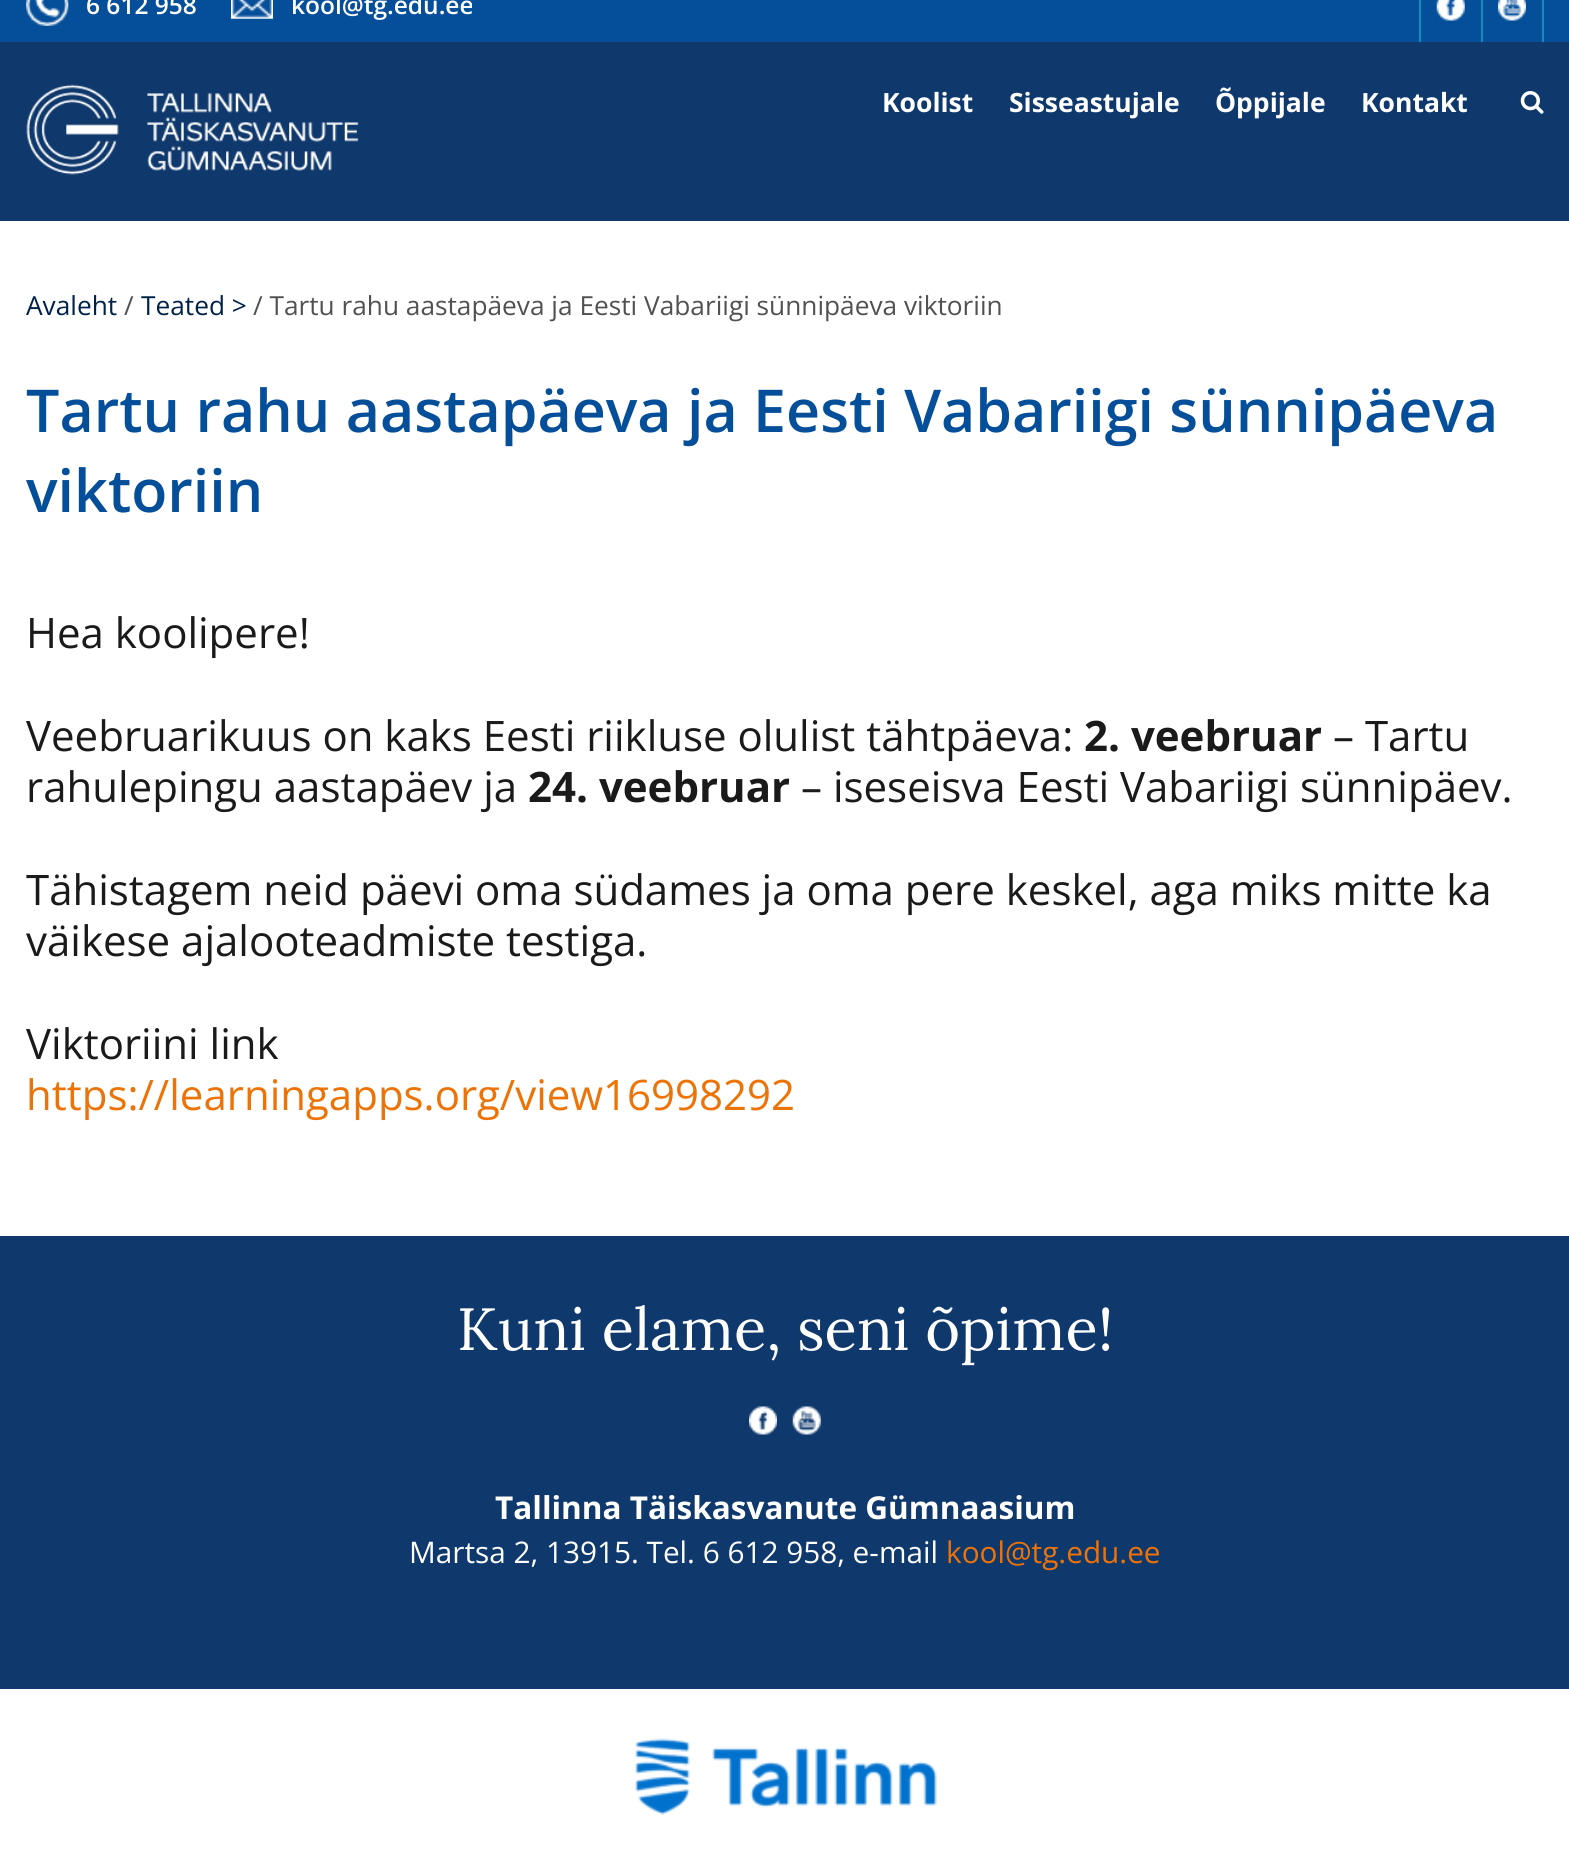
#include <cairo.h>
#include <math.h>
#include <stddef.h>

static cairo_t *c;
static void C(unsigned color){cairo_set_source_rgb(c, (color >> 16) / 255.0, (color >> 8 & 255) / 255.0, (color & 255) / 255.0);}
static void F(const char *family, double size, int italic, int bold){cairo_select_font_face(c, family, italic ? CAIRO_FONT_SLANT_ITALIC : CAIRO_FONT_SLANT_NORMAL,bold ? CAIRO_FONT_WEIGHT_BOLD : CAIRO_FONT_WEIGHT_NORMAL);cairo_set_font_size(c, size);}
static void T(double x, double y, const char *s){cairo_move_to(c, x, y);cairo_show_text(c, s);}
static void R(double x, double y, double w, double h){cairo_rectangle(c, x, y, w, h);cairo_fill(c);}
static void I(const char *path, double x, double y, double w, double h){cairo_surface_t *image = cairo_image_surface_create_from_png(path);cairo_save(c);cairo_set_source_surface(c, image, x, y);cairo_rectangle(c, x, y, w, h);cairo_fill(c);cairo_restore(c);cairo_surface_destroy(image);}
int main(void) {
cairo_surface_t *surface = cairo_image_surface_create(CAIRO_FORMAT_RGB24, 1569, 1857);
c = cairo_create(surface);
cairo_font_options_t *options = cairo_font_options_create();
cairo_font_options_set_hint_metrics(options, CAIRO_HINT_METRICS_OFF);
cairo_font_options_set_hint_style(options, CAIRO_HINT_STYLE_NONE);
cairo_set_font_options(c, options);
cairo_set_miter_limit(c, 4);
C(0xffffff);
cairo_paint(c);
C(0x0f386c);
R(0,42,1569,179);
C(0x054f9a);
R(0,0,1569,42);
I("1.png",26,0,43,26);
F("Open Sans SemiBold",24.5,0,0);
C(0xffffff);
T(86,14,"6 612 958");
I("2.png",231,0,42,19);
T(291,14,"kool@tg.edu.ee");
C(0x108dba);
R(1481,0,2,42);
R(1419,0,2,42);
I("3.png",1436,0,29,21);
R(1542,0,2,42);
I("4.png",1498,0,28,21);
I("5.png",26,84,333,91);
F("Open Sans",26.5,0,1);
C(0xffffff);
T(882,112,"Koolist");
T(1009,112,"Sisseastujale");
T(1215,112,"Õppijale");
T(1361,112,"Kontakt");
I("6.png",1520,91,24,23);
F("Open Sans",26.25,0,0);
C(0x00214a);
T(26,315,"Avaleht");
C(0x525050);
T(124,315,"/");
C(0x00214a);
T(141,315,"Teated >");
C(0x525050);
T(253,315,"/ Tartu rahu aastapäeva ja Eesti Vabariigi sünnipäeva viktoriin");
F("Open Sans SemiBold",59.1,0,0);
C(0x054f9a);
T(26,432,"Tartu rahu aastapäeva ja Eesti Vabariigi sünnipäeva");
T(26,512,"viktoriin");
F("Open Sans",42,0,0);
C(0x1a1a1a);
T(26,648,"Hea koolipere!");
T(26,751,"Veebruarikuus on kaks Eesti riikluse olulist tähtpäeva:");
F("Open Sans",42,0,1);
T(1084,751,"2. veebruar");
F("Open Sans",42,0,0);
T(1333,751,"– Tartu");
T(26,802,"rahulepingu aastapäev ja");
F("Open Sans",42,0,1);
T(528,802,"24. veebruar");
F("Open Sans",42,0,0);
T(801,802,"– iseseisva Eesti Vabariigi sünnipäev.");
T(26,905,"Tähistagem neid päevi oma südames ja oma pere keskel, aga miks mitte ka");
T(26,956,"väikese ajalooteadmiste testiga.");
T(26,1059,"Viktoriini link");
C(0xed7307);
T(26,1110,"https://learningapps.org/view16998292");
C(0x0f386c);
R(0,1236,1569,453);
F("Lora",59.5,0,0);
C(0xffffff);
T(457,1350,"Kuni elame, seni õpime!");
I("7.png",749,1406,28,29);
I("8.png",792,1406,29,29);
F("Open Sans",31.5,0,1);
T(495,1519,"Tallinna Täiskasvanute Gümnaasium");
F("Open Sans",29.75,0,0);
T(409,1563,"Martsa 2, 13915. Tel. 6 612 958, e-mail");
C(0xed7307);
T(946,1563,"kool@tg.edu.ee");
I("9.png",635,1738,302,77);
cairo_surface_write_to_png(surface, "o.png");
cairo_font_options_destroy(options);
cairo_destroy(c);
cairo_surface_destroy(surface);
return 0;
}
